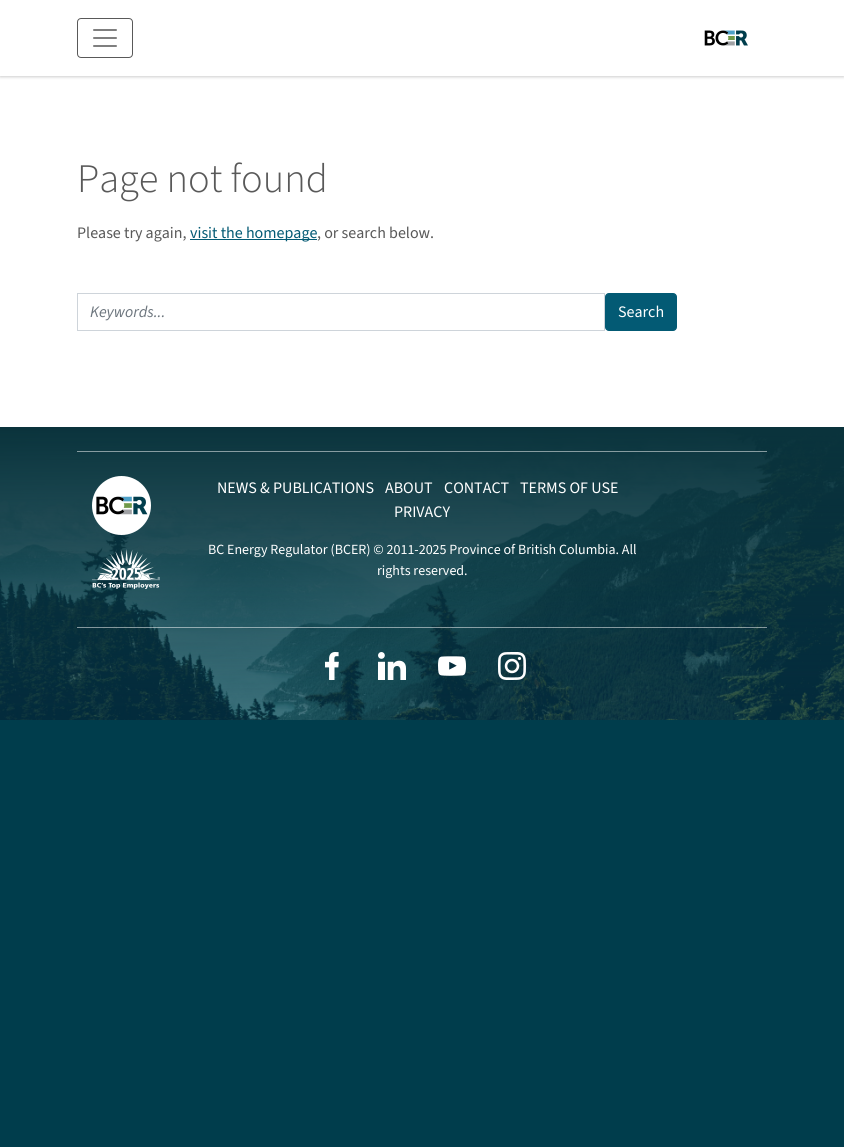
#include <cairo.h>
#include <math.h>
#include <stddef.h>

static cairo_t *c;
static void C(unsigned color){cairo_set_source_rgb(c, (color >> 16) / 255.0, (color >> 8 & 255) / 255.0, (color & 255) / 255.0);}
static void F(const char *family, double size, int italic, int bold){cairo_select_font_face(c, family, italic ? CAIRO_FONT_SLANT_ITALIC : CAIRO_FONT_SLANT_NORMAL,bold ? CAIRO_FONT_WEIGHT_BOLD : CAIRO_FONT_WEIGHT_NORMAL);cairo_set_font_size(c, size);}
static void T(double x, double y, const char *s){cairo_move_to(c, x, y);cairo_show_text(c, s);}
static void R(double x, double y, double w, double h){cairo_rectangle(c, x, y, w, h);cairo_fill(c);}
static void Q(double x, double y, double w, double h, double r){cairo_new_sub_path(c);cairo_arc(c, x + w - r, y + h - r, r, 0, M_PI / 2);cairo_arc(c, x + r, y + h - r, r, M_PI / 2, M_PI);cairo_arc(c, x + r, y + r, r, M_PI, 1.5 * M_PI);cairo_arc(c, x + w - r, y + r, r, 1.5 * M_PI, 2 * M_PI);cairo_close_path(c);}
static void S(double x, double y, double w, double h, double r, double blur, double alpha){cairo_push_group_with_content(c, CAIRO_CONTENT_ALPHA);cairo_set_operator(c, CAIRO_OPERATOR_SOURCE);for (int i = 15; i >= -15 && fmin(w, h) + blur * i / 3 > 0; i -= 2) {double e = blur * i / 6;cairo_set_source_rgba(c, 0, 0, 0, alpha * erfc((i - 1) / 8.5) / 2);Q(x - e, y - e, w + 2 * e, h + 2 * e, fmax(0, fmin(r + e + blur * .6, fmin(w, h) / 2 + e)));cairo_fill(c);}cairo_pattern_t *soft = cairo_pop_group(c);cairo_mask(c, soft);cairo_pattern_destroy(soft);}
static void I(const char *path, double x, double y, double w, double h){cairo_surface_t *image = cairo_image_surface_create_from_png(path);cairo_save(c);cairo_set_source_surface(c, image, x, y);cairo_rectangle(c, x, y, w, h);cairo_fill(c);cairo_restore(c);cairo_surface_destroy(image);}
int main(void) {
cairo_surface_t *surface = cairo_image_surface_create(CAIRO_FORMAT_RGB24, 844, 1147);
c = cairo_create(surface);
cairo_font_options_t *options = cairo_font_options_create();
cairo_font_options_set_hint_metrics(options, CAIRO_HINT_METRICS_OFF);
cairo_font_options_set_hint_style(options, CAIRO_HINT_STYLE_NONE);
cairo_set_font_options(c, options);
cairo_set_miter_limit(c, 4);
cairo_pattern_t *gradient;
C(0x003d4c);
cairo_paint(c);
C(0xffffff);
R(0,76,844,351);
C(0x000000);
S(0,1,844,76,0,1.5,.2);
C(0xffffff);
R(0,0,844,76);
Q(77.5,18.5,55,39,3.5);
C(0x595959);
cairo_set_line_width(c,1);
cairo_stroke(c);
I("1.png",93,29,24,18);
I("2.png",704,30,44,16);
F("Source Sans 3 Light",40.5,0,0);
T(77,192,"Page not found");
F("Source Sans 3",16,0,0);
T(77,238,"Please try again,");
C(0x035a74);
R(190,239,127,1);
T(190,238,"visit the homepage");
C(0x595959);
T(317,238,", or search below.");
cairo_rectangle(c,77.5,293.5,527,37);
C(0xced4da);
cairo_stroke(c);
F("Source Sans 3",16,1,0);
C(0x6c757d);
T(90,317,"Keywords...");
C(0x035a74);
Q(605.5,293.5,71,37,3.5);
cairo_fill_preserve(c);
cairo_stroke(c);
F("Source Sans 3",16,0,0);
C(0xffffff);
T(618,317,"Search");
I("3.png",0,429,844,291);
gradient = cairo_pattern_create_linear(422,720,422,427);
cairo_pattern_add_color_stop_rgba(gradient,0,0.039,0.2,0.235,0);
cairo_pattern_add_color_stop_rgba(gradient,1,0.039,0.2,0.235,1);
cairo_set_source(c,gradient);
cairo_pattern_destroy(gradient);
R(0,427,844,282);
cairo_set_source_rgba(c,1,1,1,0.5);
R(77,451,690,1);
R(77,627,690,1);
I("4.png",92,476,59,59);
I("5.png",92,549,68,40);
C(0xffffff);
T(217,493,"NEWS & PUBLICATIONS");
T(385,493,"ABOUT");
T(444,493,"CONTACT");
T(520,493,"TERMS OF USE");
T(394,517,"PRIVACY");
F("Source Sans 3",14,0,0);
T(208,554,"BC Energy Regulator (BCER) © 2011-2025 Province of British Columbia. All");
T(377,575,"rights reserved.");
I("6.png",325,652,14,28);
I("7.png",378,652,28,28);
I("8.png",438,656,28,20);
I("9.png",498,652,28,28);
cairo_surface_write_to_png(surface, "o.png");
cairo_font_options_destroy(options);
cairo_destroy(c);
cairo_surface_destroy(surface);
return 0;
}
